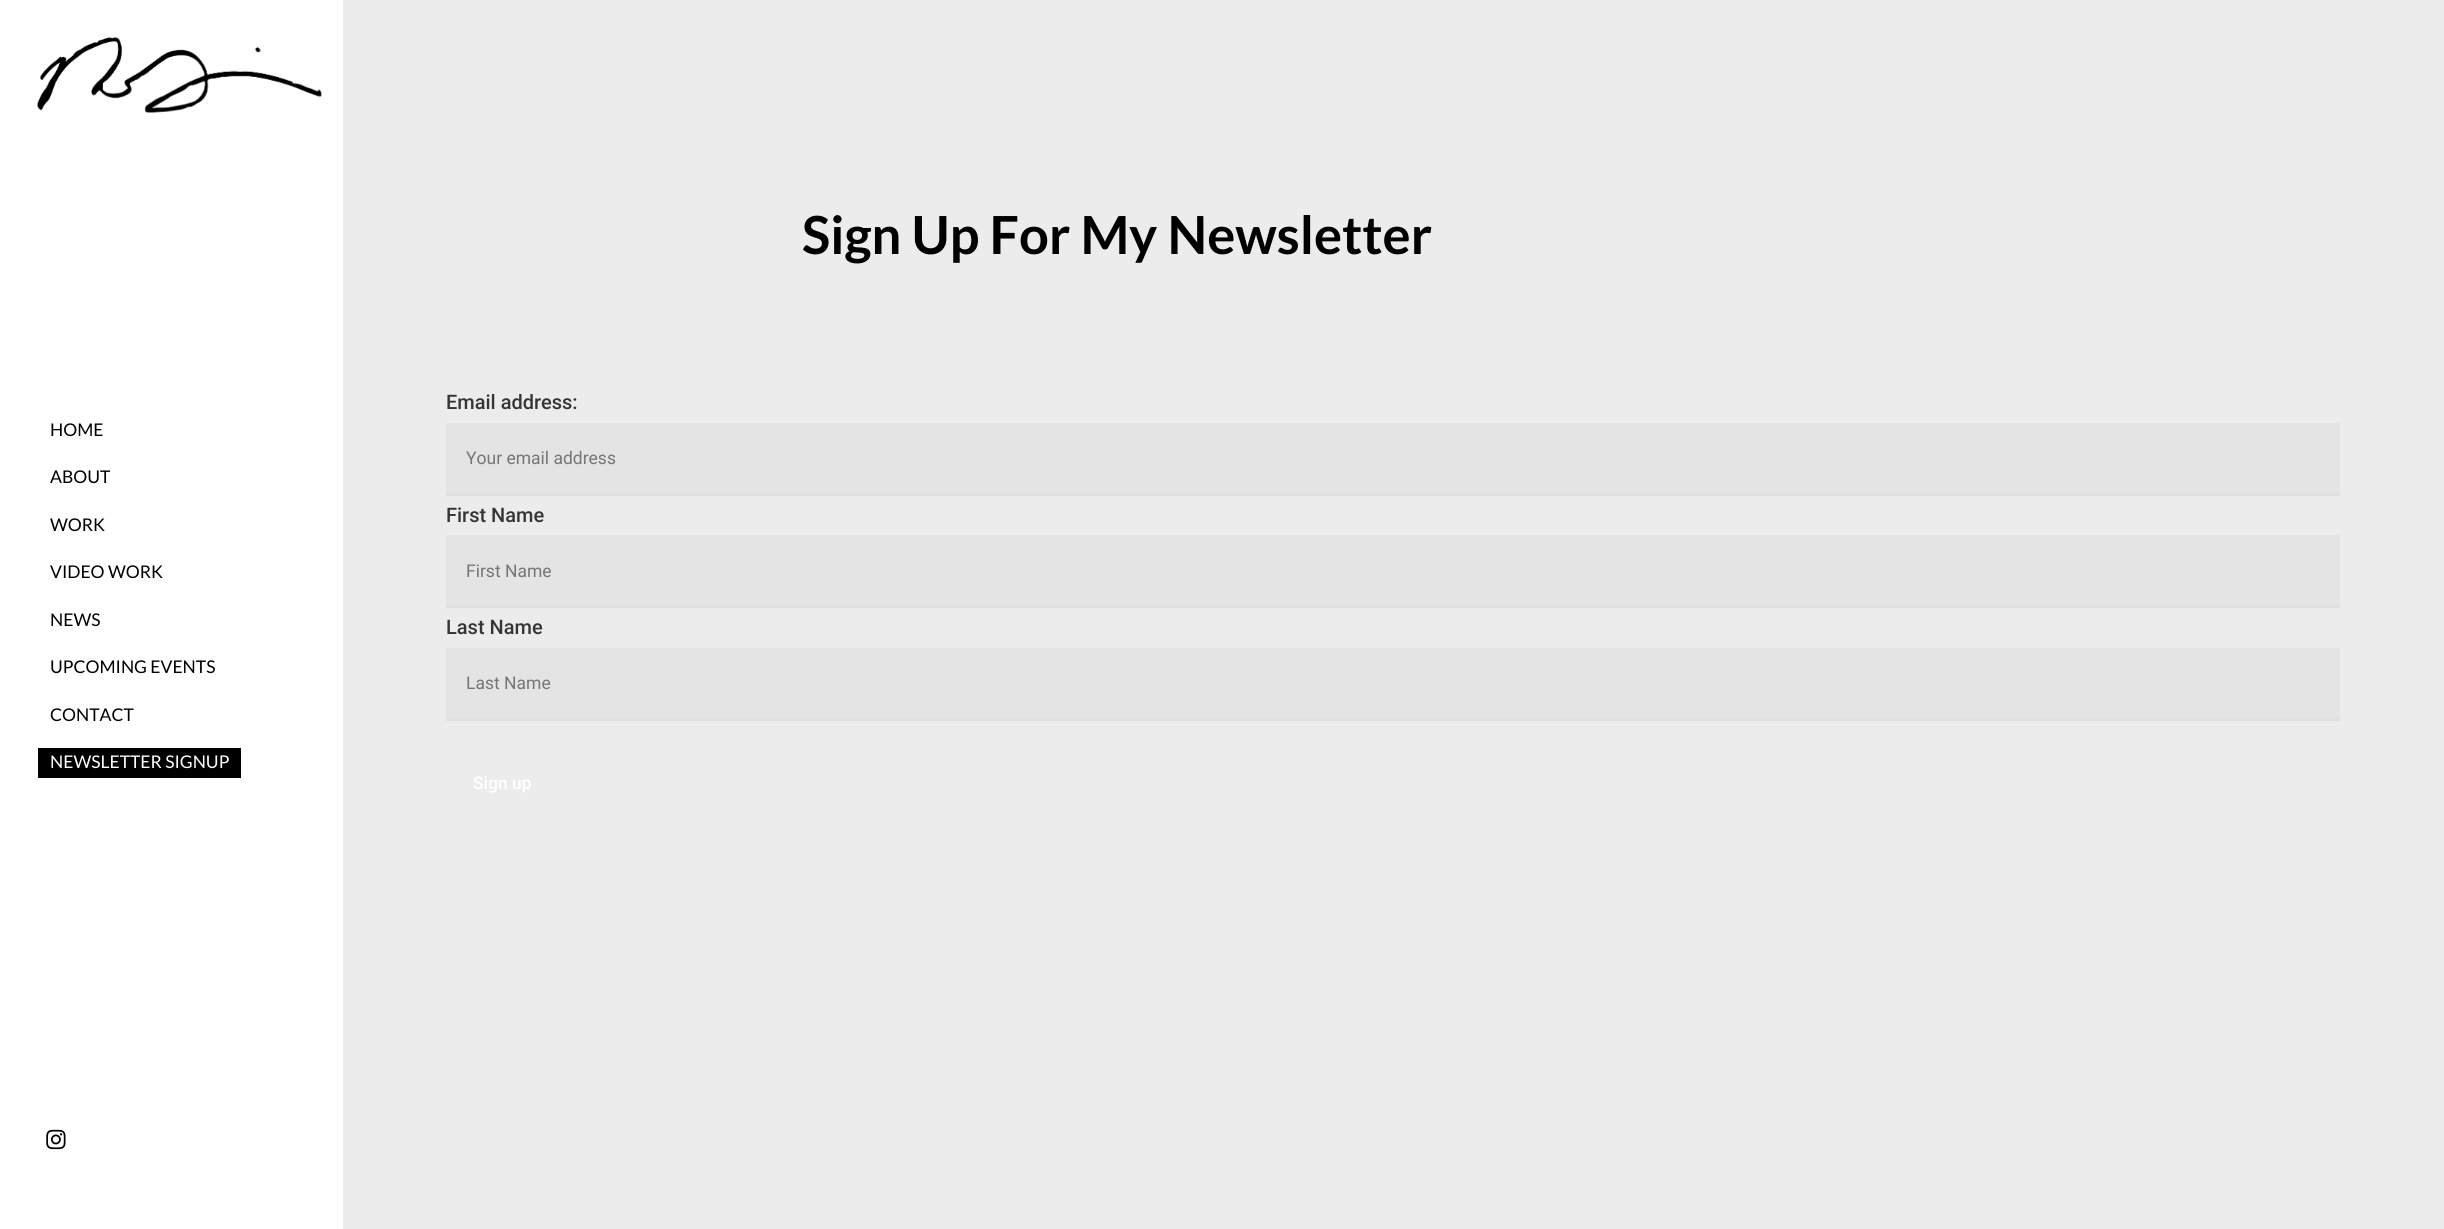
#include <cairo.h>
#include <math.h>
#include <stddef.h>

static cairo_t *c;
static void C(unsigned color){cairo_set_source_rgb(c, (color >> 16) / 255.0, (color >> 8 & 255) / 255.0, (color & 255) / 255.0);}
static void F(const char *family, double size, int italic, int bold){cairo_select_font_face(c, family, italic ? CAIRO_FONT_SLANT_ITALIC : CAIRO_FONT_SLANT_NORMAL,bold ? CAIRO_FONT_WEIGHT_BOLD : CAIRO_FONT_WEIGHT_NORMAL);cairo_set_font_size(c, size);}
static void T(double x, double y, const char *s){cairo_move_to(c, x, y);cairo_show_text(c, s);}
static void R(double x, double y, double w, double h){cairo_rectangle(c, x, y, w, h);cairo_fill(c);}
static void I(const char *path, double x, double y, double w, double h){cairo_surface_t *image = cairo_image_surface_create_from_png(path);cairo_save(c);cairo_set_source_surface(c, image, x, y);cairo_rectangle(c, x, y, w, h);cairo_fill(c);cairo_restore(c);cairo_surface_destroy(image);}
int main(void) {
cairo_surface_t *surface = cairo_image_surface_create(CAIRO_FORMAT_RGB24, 2444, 1229);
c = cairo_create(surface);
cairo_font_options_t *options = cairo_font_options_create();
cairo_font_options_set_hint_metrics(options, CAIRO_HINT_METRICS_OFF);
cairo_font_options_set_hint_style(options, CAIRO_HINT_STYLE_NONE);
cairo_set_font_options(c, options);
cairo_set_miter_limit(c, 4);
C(0xececec);
cairo_paint(c);
C(0xffffff);
R(0,0,343,1229);
I("1.png",37,37,285,76);
F("Lato",17.5,0,0);
C(0x000000);
T(50,436,"HOME");
T(50,483,"ABOUT");
T(50,531,"WORK");
T(50,578,"VIDEO WORK");
T(50,626,"NEWS");
T(50,673,"UPCOMING EVENTS");
T(50,721,"CONTACT");
R(38,748,203,30);
C(0xffffff);
T(50,768,"NEWSLETTER SIGNUP");
I("2.png",46,1129,20,21);
F("Lato",52.5,0,1);
C(0x000000);
T(802,254,"Sign Up For My Newsletter");
F("Roboto Medium",20,0,0);
C(0x353535);
T(446,409,"Email address:");
C(0xe4e4e4);
R(446,423,1894,70);
C(0xe0e0e0);
R(446,493,1894,3);
F("Roboto",17.5,0,0);
C(0x757575);
T(466,464,"Your email address");
F("Roboto Medium",20,0,0);
C(0x353535);
T(446,522,"First Name");
C(0xe4e4e4);
R(446,535,1894,70);
C(0xe0e0e0);
R(446,605,1894,3);
F("Roboto",17.5,0,0);
C(0x757575);
T(466,577,"First Name");
F("Roboto Medium",20,0,0);
C(0x353535);
T(446,634,"Last Name");
C(0xe4e4e4);
R(446,648,1894,70);
C(0xe0e0e0);
R(446,718,1894,3);
F("Roboto",17.5,0,0);
C(0x757575);
T(466,689,"Last Name");
F("Roboto Medium",17.5,0,0);
C(0xffffff);
T(473,789,"Sign up");
cairo_surface_write_to_png(surface, "o.png");
cairo_font_options_destroy(options);
cairo_destroy(c);
cairo_surface_destroy(surface);
return 0;
}
